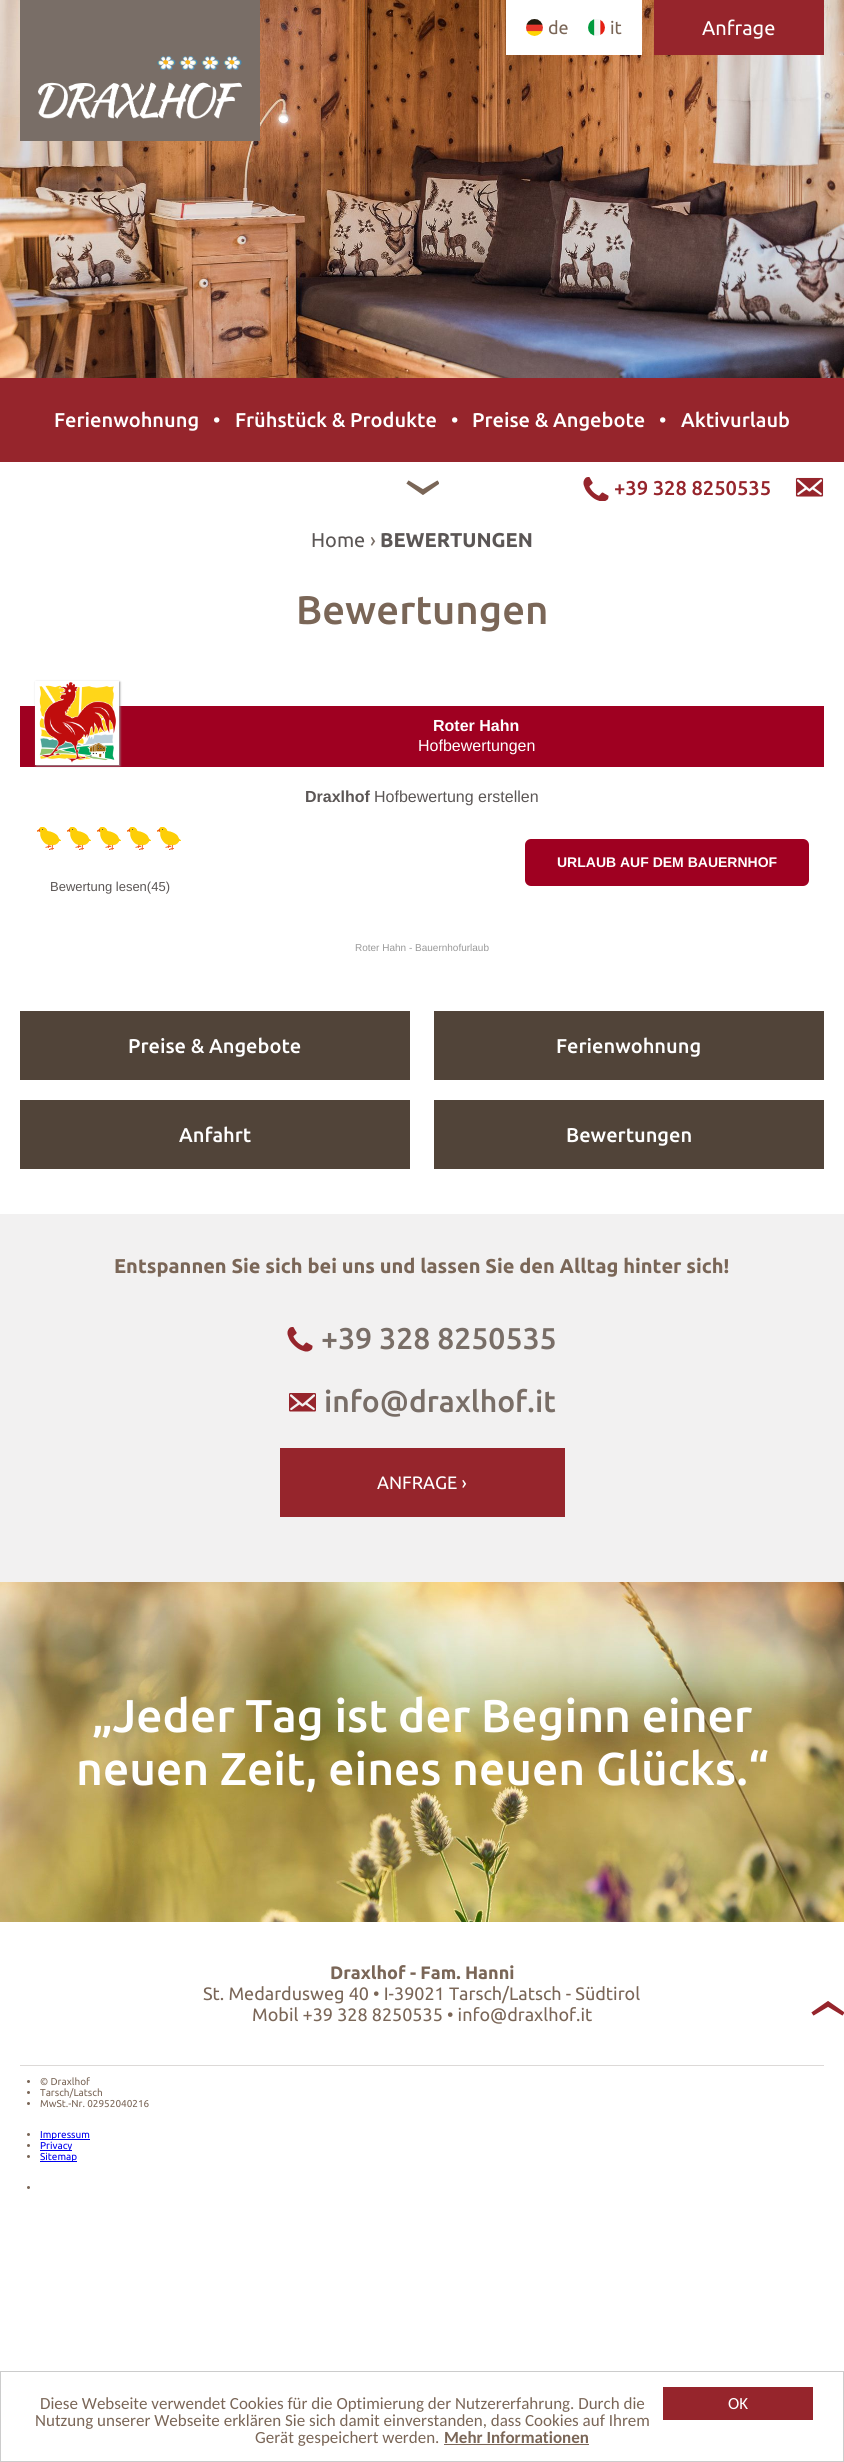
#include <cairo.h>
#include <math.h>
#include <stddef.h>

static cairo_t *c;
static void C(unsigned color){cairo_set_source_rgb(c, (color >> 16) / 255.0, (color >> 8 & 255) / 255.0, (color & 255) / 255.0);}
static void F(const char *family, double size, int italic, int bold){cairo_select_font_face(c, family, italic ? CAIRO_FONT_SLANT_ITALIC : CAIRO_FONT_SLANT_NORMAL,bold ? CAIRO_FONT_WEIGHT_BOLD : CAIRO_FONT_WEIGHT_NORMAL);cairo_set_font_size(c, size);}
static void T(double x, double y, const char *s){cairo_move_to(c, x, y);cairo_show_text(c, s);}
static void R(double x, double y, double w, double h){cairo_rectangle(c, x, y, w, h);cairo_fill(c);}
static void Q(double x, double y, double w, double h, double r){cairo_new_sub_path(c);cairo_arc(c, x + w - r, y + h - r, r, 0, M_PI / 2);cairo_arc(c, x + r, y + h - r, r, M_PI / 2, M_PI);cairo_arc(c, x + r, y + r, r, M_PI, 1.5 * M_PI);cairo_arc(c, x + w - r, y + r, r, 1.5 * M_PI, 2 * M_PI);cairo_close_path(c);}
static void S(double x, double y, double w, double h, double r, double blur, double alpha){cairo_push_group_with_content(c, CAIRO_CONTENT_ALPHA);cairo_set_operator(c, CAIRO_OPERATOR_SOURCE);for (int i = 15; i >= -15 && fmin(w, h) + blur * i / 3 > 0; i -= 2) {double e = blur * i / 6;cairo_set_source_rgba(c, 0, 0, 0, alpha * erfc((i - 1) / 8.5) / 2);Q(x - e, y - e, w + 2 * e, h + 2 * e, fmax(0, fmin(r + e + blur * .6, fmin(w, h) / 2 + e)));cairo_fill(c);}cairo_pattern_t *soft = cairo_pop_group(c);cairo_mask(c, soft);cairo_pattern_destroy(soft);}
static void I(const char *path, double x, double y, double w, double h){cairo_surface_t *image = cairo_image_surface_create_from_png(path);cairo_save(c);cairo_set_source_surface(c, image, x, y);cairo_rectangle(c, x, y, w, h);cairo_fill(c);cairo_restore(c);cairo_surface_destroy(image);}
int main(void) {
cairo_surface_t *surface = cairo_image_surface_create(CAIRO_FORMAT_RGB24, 844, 2462);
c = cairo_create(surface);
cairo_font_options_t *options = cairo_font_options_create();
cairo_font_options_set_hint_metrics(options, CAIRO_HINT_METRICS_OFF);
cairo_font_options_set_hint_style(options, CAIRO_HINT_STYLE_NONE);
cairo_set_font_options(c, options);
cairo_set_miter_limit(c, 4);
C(0xffffff);
cairo_paint(c);
I("1.png",0,0,844,378);
C(0x796e67);
R(20,0,240,141);
I("2.png",38,56,204,63);
C(0xffffff);
R(506,0,136,55);
I("3.png",526,19,17,17);
F("Ubuntu",18,0,0);
C(0x7a6657);
T(548,34,"de");
I("4.png",588,19,17,17);
T(610,34,"it");
C(0x96252c);
R(654,0,170,55);
F("Ubuntu",20,0,0);
C(0xffffff);
T(702,35,"Anfrage");
C(0x96252c);
R(0,378,844,84);
F("Ubuntu Medium",20,0,0);
C(0xffffff);
T(54,427,"Ferienwohnung");
T(213,427,"•");
T(235,427,"Frühstück & Produkte");
T(451,427,"•");
T(472,427,"Preise & Angebote");
T(659,427,"•");
T(681,427,"Aktivurlaub");
I("5.png",406,480,33,15);
I("6.png",583,477,26,24);
C(0x96252c);
T(614,495,"+39 328 8250535");
I("7.png",795,477,29,20);
F("Ubuntu",20,0,0);
C(0x5b5655);
T(311,547,"Home");
C(0x796e67);
T(370,547,"›");
F("Ubuntu",20,0,1);
C(0x5b5655);
T(380,547,"BEWERTUNGEN");
F("Ubuntu Medium",40,0,0);
C(0x7a6657);
T(296,624,"Bewertungen");
C(0x9f0021);
R(20,706,804,61);
C(0x999999);
S(36,682,84,84,0,1,1);
I("8.png",35,681,84,84);
F("Liberation Sans",16,0,1);
C(0xffffff);
T(433,731,"Roter Hahn");
F("Liberation Sans",16,0,0);
T(418,751,"Hofbewertungen");
F("Liberation Sans",16,0,1);
C(0x5b5655);
T(305,802,"Draxlhof");
F("Liberation Sans",16,0,0);
T(374,802,"Hofbewertung erstellen");
C(0x9f0021);
Q(525,839,284,47,6);
cairo_fill(c);
F("Liberation Sans",14,0,1);
C(0xffffff);
T(557,867,"URLAUB AUF DEM BAUERNHOF");
I("9.png",37,827,24,23);
I("9.png",67,827,24,23);
I("9.png",97,827,24,23);
I("9.png",127,827,24,23);
I("9.png",157,827,24,23);
F("Liberation Sans",13,0,0);
C(0x5b5655);
T(50,891,"Bewertung lesen(45)");
F("Liberation Sans",10,0,0);
C(0x999999);
T(355,951,"Roter Hahn - Bauernhofurlaub");
C(0x514439);
R(20,1011,390,69);
F("Ubuntu Medium",20,0,0);
C(0xffffff);
T(128,1053,"Preise & Angebote");
C(0x514439);
R(434,1011,390,69);
C(0xffffff);
T(556,1053,"Ferienwohnung");
C(0x514439);
R(20,1100,390,69);
C(0xffffff);
T(179,1142,"Anfahrt");
C(0x514439);
R(434,1100,390,69);
C(0xffffff);
T(566,1142,"Bewertungen");
C(0xf2f1f1);
R(0,1214,844,368);
F("Ubuntu",20,0,1);
C(0x7a6657);
T(114,1273,"Entspannen Sie sich bei uns und lassen Sie den Alltag hinter sich!");
I("10.png",287,1327,26,25);
F("Ubuntu Medium",30,0,0);
C(0x796e67);
T(321,1349,"+39 328 8250535");
I("11.png",289,1393,27,19);
T(324,1412,"info@draxlhof.it");
C(0x96252c);
R(280,1448,285,69);
F("Ubuntu",18,0,0);
C(0xffffff);
T(377,1489,"ANFRAGE ›");
I("12.png",0,1582,844,340);
F("Ubuntu Medium",46,0,0);
T(92,1732,"„Jeder Tag ist der Beginn einer");
T(76,1785,"neuen Zeit, eines neuen Glücks.“");
C(0xdcd9d7);
R(20,2065,804,1);
F("Ubuntu",18,0,1);
C(0x7a6657);
T(330,1979,"Draxlhof - Fam. Hanni");
F("Ubuntu",18,0,0);
T(203,2000,"St. Medardusweg 40 • I-39021 Tarsch/Latsch - Südtirol");
T(252,2021,"Mobil +39 328 8250535 • info@draxlhof.it");
I("13.png",811,2001,33,15);
cairo_arc(c,28.5,2081.5,1.5,0,2 * M_PI);
cairo_fill(c);
F("Ubuntu",10,0,0);
T(40,2085,"© Draxlhof");
cairo_new_path(c);
cairo_arc(c,28.5,2092.5,1.5,0,2 * M_PI);
cairo_fill(c);
T(40,2096,"Tarsch/Latsch");
cairo_new_path(c);
cairo_arc(c,28.5,2103.5,1.5,0,2 * M_PI);
cairo_fill(c);
T(40,2107,"MwSt.-Nr. 02952040216");
cairo_new_path(c);
cairo_arc(c,28.5,2134.5,1.5,0,2 * M_PI);
cairo_fill(c);
C(0x0000ee);
R(40,2139,50,1);
T(40,2138,"Impressum");
C(0x7a6657);
cairo_new_path(c);
cairo_arc(c,28.5,2145.5,1.5,0,2 * M_PI);
cairo_fill(c);
C(0x0000ee);
R(40,2150,32,1);
T(40,2149,"Privacy");
C(0x7a6657);
cairo_new_path(c);
cairo_arc(c,28.5,2156.5,1.5,0,2 * M_PI);
cairo_fill(c);
C(0x0000ee);
R(40,2161,37,1);
T(40,2160,"Sitemap");
C(0x7a6657);
cairo_new_path(c);
cairo_arc(c,28.5,2187.5,1.5,0,2 * M_PI);
cairo_fill(c);
cairo_rectangle(c,.5,2371.5,843,90);
C(0xcccccc);
cairo_set_line_width(c,1);
cairo_stroke(c);
F("Carlito",17,0,0);
C(0x7a6657);
T(40,2409,"Diese Webseite verwendet Cookies für die Optimierung der Nutzererfahrung. Durch die");
T(35,2426,"Nutzung unserer Webseite erklären Sie sich damit einverstanden, dass Cookies auf Ihrem");
T(255,2443,"Gerät gespeichert werden.");
F("Carlito",17,0,1);
T(444,2443,"Mehr Informationen");
R(444,2444,145,1);
C(0x96252c);
R(663,2387,150,33);
F("Carlito",17,0,0);
C(0xffffff);
T(728,2409,"OK");
cairo_surface_write_to_png(surface, "o.png");
cairo_font_options_destroy(options);
cairo_destroy(c);
cairo_surface_destroy(surface);
return 0;
}
